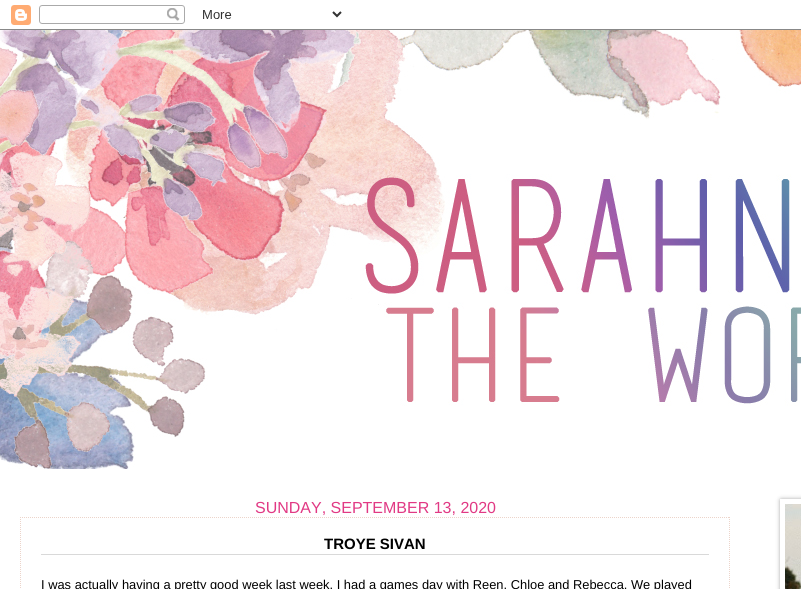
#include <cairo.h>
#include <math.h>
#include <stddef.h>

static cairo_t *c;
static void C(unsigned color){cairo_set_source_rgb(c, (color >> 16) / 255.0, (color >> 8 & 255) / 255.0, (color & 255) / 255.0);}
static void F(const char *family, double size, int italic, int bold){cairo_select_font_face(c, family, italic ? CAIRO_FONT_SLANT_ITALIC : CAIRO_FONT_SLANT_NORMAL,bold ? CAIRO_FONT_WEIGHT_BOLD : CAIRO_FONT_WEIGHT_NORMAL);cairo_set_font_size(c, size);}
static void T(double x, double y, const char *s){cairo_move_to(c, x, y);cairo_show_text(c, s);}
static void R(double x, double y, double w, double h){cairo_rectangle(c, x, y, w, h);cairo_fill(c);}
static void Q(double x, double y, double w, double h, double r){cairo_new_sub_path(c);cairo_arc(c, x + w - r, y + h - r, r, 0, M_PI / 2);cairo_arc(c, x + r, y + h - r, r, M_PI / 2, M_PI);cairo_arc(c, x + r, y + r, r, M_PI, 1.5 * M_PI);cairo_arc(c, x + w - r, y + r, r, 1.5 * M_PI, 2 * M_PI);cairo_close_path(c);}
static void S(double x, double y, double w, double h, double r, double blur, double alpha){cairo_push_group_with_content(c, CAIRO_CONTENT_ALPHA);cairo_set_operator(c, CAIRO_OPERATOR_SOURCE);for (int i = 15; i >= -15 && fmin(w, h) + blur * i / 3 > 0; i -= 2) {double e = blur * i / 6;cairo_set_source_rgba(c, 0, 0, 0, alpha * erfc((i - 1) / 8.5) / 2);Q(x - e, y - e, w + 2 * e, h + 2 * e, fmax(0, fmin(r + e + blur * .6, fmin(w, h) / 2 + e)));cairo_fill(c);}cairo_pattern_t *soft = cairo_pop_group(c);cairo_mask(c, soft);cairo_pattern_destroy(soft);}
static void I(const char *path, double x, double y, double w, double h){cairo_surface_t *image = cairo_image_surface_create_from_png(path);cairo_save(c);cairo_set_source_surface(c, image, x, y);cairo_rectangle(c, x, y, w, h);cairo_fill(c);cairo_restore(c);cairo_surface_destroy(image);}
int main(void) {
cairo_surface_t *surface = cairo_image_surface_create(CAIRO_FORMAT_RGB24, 801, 589);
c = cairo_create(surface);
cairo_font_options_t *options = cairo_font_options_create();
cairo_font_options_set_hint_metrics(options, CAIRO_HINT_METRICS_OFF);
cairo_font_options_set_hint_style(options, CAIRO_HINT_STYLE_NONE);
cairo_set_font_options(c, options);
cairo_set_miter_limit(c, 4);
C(0xffffff);
cairo_paint(c);
I("1.png",0,5,801,25);
I("2.png",0,30,801,439);
F("Liberation Sans",16,0,0);
C(0xe13984);
T(255,513,"SUNDAY, SEPTEMBER 13, 2020");
cairo_new_path(c);
cairo_move_to(c,20,517.5);
cairo_line_to(c,730,517.5);
C(0xecd4ca);
cairo_set_line_width(c,1);
cairo_set_dash(c,(double[]){1,1},2,0);
cairo_stroke(c);
cairo_new_path(c);
cairo_move_to(c,729.5,517);
cairo_line_to(c,729.5,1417);
cairo_stroke(c);
cairo_new_path(c);
cairo_move_to(c,20.5,517);
cairo_line_to(c,20.5,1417);
cairo_stroke(c);
C(0xd9d9d9);
R(41,554,668,1);
F("Liberation Sans",15,0,1);
C(0x000000);
T(324,549,"TROYE SIVAN");
F("Liberation Sans",12.88,0,0);
T(41,589,"I was actually having a pretty good week last week. I had a games day with Reen, Chloe and Rebecca. We played");
cairo_save(c);
cairo_set_fill_rule(c,CAIRO_FILL_RULE_EVEN_ODD);
cairo_new_path(c);
cairo_move_to(c,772,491);
cairo_line_to(c,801,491);
cairo_line_to(c,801,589);
cairo_line_to(c,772,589);
cairo_close_path(c);
cairo_move_to(c,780,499);
cairo_line_to(c,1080,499);
cairo_line_to(c,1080,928);
cairo_line_to(c,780,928);
cairo_close_path(c);
cairo_clip(c);
C(0x000000);
S(781,500,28,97,0,2.5,.5);
cairo_restore(c);
I("3.png",785,504,16,85);
cairo_surface_write_to_png(surface, "o.png");
cairo_font_options_destroy(options);
cairo_destroy(c);
cairo_surface_destroy(surface);
return 0;
}
